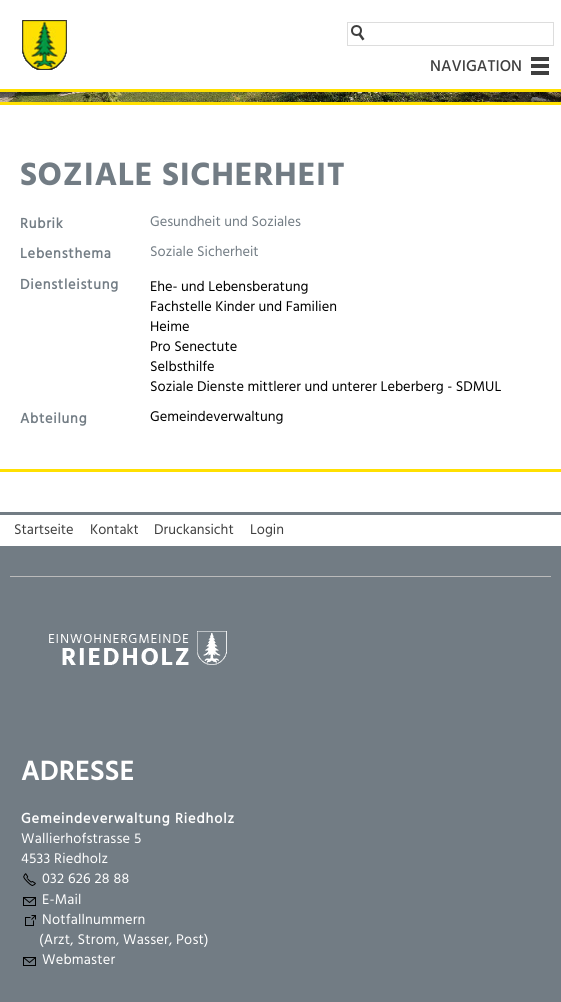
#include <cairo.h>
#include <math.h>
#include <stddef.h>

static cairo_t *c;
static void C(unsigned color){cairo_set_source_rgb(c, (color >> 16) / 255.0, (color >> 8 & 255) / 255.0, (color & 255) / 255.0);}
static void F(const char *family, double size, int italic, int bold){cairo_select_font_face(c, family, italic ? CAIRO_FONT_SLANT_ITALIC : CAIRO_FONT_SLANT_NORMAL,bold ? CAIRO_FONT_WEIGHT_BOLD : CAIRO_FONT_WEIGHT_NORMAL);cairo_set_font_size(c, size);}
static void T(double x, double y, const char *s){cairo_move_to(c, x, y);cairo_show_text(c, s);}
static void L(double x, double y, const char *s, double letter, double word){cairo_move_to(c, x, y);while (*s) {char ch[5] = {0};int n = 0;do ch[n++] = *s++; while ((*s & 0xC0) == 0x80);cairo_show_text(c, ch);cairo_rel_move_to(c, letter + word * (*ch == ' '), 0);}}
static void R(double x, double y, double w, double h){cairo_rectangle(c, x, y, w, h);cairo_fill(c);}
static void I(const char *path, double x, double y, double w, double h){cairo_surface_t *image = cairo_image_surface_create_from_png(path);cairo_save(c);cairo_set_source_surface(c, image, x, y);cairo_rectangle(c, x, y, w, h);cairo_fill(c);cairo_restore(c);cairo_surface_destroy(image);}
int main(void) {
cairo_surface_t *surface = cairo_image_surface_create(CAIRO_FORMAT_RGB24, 561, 1002);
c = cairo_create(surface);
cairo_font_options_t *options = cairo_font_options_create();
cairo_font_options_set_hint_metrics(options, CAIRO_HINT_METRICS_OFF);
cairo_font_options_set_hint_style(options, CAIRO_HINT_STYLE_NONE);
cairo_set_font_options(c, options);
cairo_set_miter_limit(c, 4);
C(0xffffff);
cairo_paint(c);
C(0xffe001);
R(0,89,561,3);
I("1.png",22,20,45,50);
cairo_rectangle(c,347.5,22.5,206,23);
C(0xdddddd);
cairo_set_line_width(c,1);
cairo_stroke(c);
cairo_arc(c,356.5,30.5,4.5,0,2 * M_PI);
C(0x3f3f3f);
cairo_set_line_width(c,2);
cairo_stroke(c);
cairo_new_path(c);
cairo_move_to(c,360.5,33.5);
cairo_line_to(c,364.5,39);
cairo_line_to(c,362.5,40.5);
cairo_line_to(c,358.5,35);
cairo_close_path(c);
cairo_fill(c);
F("Hind Medium",16,0,0);
T(430,71,"NAVIGATION");
R(531,57,18,4);
R(531,71,18,4);
R(531,64,18,4);
C(0xffe001);
R(0,102,561,3);
I("2.png",0,92,561,10);
R(0,469,561,3);
F("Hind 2",33.1,0,1);
C(0x727c84);
L(20,185,"SOZIALE SICHERHEIT",.6,0);
F("Hind",14.4,0,1);
L(20,228,"Rubrik",.75,0);
F("Hind",14.4,0,0);
T(150,226,"Gesundheit und Soziales");
F("Hind",14.4,0,1);
L(20,258,"Lebensthema",.75,0);
F("Hind",14.4,0,0);
T(150,256,"Soziale Sicherheit");
F("Hind",14.4,0,1);
L(20,289,"Dienstleistung",.75,0);
F("Hind",14.4,0,0);
C(0x000000);
T(150,291,"Ehe- und Lebensberatung");
T(150,311,"Fachstelle Kinder und Familien");
T(150,331,"Heime");
T(150,351,"Pro Senectute");
T(150,371,"Selbsthilfe");
T(150,391,"Soziale Dienste mittlerer und unterer Leberberg - SDMUL");
F("Hind",14.4,0,1);
C(0x727c84);
L(20,423,"Abteilung",.75,0);
F("Hind",14.4,0,0);
C(0x000000);
T(150,421,"Gemeindeverwaltung");
C(0x727c84);
R(0,512,561,490);
C(0xffffff);
R(0,515,561,31);
C(0x3f3f3f);
T(14,534,"Startseite");
T(90,534,"Kontakt");
T(154,534,"Druckansicht");
T(250,534,"Login");
C(0xbbbbbb);
R(10,576,541,1);
I("3.png",49,631,178,34);
F("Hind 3",27.5,0,1);
C(0xffffff);
L(21,780,"ADRESSE",.6,0);
F("Hind",14.4,0,1);
L(21,823,"Gemeindeverwaltung Riedholz",.9,0);
F("Hind",14.4,0,0);
L(21,843,"Wallierhofstrasse 5",.2,0);
L(21,863,"4533 Riedholz",.2,0);
I("4.png",23,873,13,13);
L(42,883,"032 626 28 88",.2,0);
I("5.png",23,897,13,9);
L(42,904,"E-Mail",.2,0);
I("6.png",25,915,11,11);
L(42,924,"Notfallnummern",.2,0);
L(39,944,"(Arzt, Strom, Wasser, Post)",.2,0);
I("5.png",23,957,13,9);
L(42,964,"Webmaster",.2,0);
cairo_surface_write_to_png(surface, "o.png");
cairo_font_options_destroy(options);
cairo_destroy(c);
cairo_surface_destroy(surface);
return 0;
}
